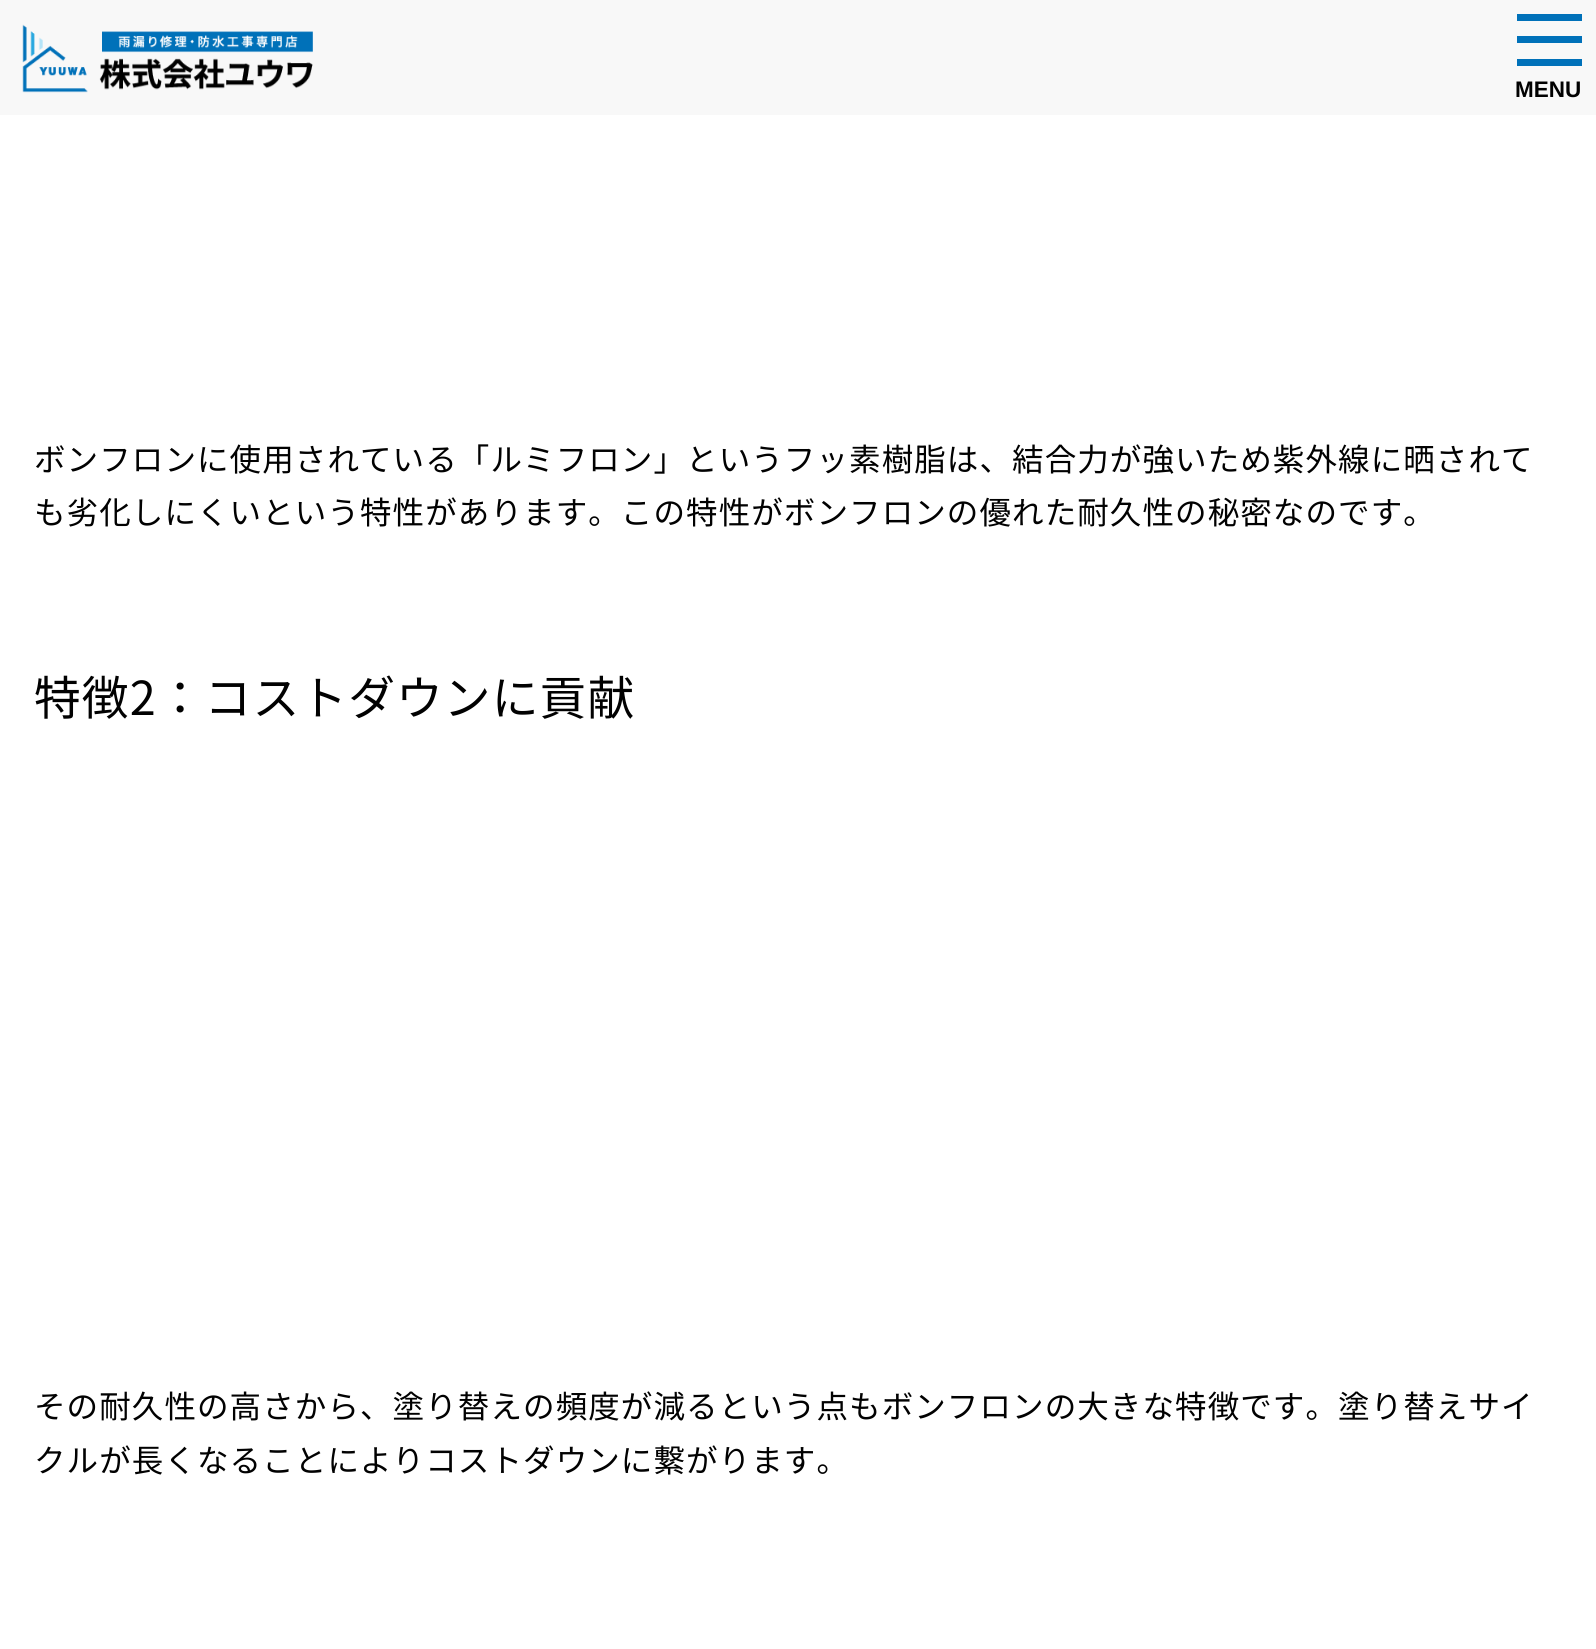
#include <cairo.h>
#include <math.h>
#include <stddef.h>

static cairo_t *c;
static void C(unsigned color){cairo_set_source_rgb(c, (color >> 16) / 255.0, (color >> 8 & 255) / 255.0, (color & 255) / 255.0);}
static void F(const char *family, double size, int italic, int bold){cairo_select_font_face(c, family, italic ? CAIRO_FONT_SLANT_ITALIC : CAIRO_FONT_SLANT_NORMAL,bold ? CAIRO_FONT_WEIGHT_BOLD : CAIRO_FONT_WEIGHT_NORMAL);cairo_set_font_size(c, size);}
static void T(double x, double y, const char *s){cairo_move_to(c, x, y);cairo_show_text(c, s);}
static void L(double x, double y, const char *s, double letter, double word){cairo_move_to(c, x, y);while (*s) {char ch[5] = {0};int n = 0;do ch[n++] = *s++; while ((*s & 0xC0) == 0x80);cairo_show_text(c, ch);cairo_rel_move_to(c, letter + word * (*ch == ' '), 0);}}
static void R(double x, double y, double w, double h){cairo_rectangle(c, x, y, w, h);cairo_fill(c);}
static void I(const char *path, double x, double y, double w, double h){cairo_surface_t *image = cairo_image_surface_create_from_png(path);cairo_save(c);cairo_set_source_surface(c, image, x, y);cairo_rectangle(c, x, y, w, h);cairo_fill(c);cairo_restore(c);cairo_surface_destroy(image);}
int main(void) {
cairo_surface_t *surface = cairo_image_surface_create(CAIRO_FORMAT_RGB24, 1596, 1649);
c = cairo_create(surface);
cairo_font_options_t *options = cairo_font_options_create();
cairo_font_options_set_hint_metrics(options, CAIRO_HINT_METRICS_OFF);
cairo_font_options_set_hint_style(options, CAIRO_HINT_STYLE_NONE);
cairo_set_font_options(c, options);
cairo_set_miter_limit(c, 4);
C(0xffffff);
cairo_paint(c);
C(0xf8f8f8);
R(0,0,1596,115);
I("1.png",22,24,291,69);
C(0x0071b9);
R(1517,36,65,7);
R(1517,14,65,7);
R(1517,59,65,7);
F("Liberation Sans",22.5,0,1);
C(0x010101);
T(1515,97,"MENU");
F("Noto Sans JP",31.5,0,0);
L(34,471,"ボンフロンに使用されている「ルミフロン」というフッ素樹脂は、結合力が強いため紫外線に晒されて",1.1,0);
L(34,524,"も劣化しにくいという特性があります。この特性がボンフロンの優れた耐久性の秘密なのです。",1.1,0);
F("Noto Sans JP",46.75,0,0);
L(34,715,"特徴2：コストダウンに貢献",1.1,0);
F("Noto Sans JP",31.5,0,0);
L(34,1418,"その耐久性の高さから、塗り替えの頻度が減るという点もボンフロンの大きな特徴です。塗り替えサイ",1.1,0);
L(34,1472,"クルが長くなることによりコストダウンに繋がります。",1.1,0);
cairo_surface_write_to_png(surface, "o.png");
cairo_font_options_destroy(options);
cairo_destroy(c);
cairo_surface_destroy(surface);
return 0;
}
